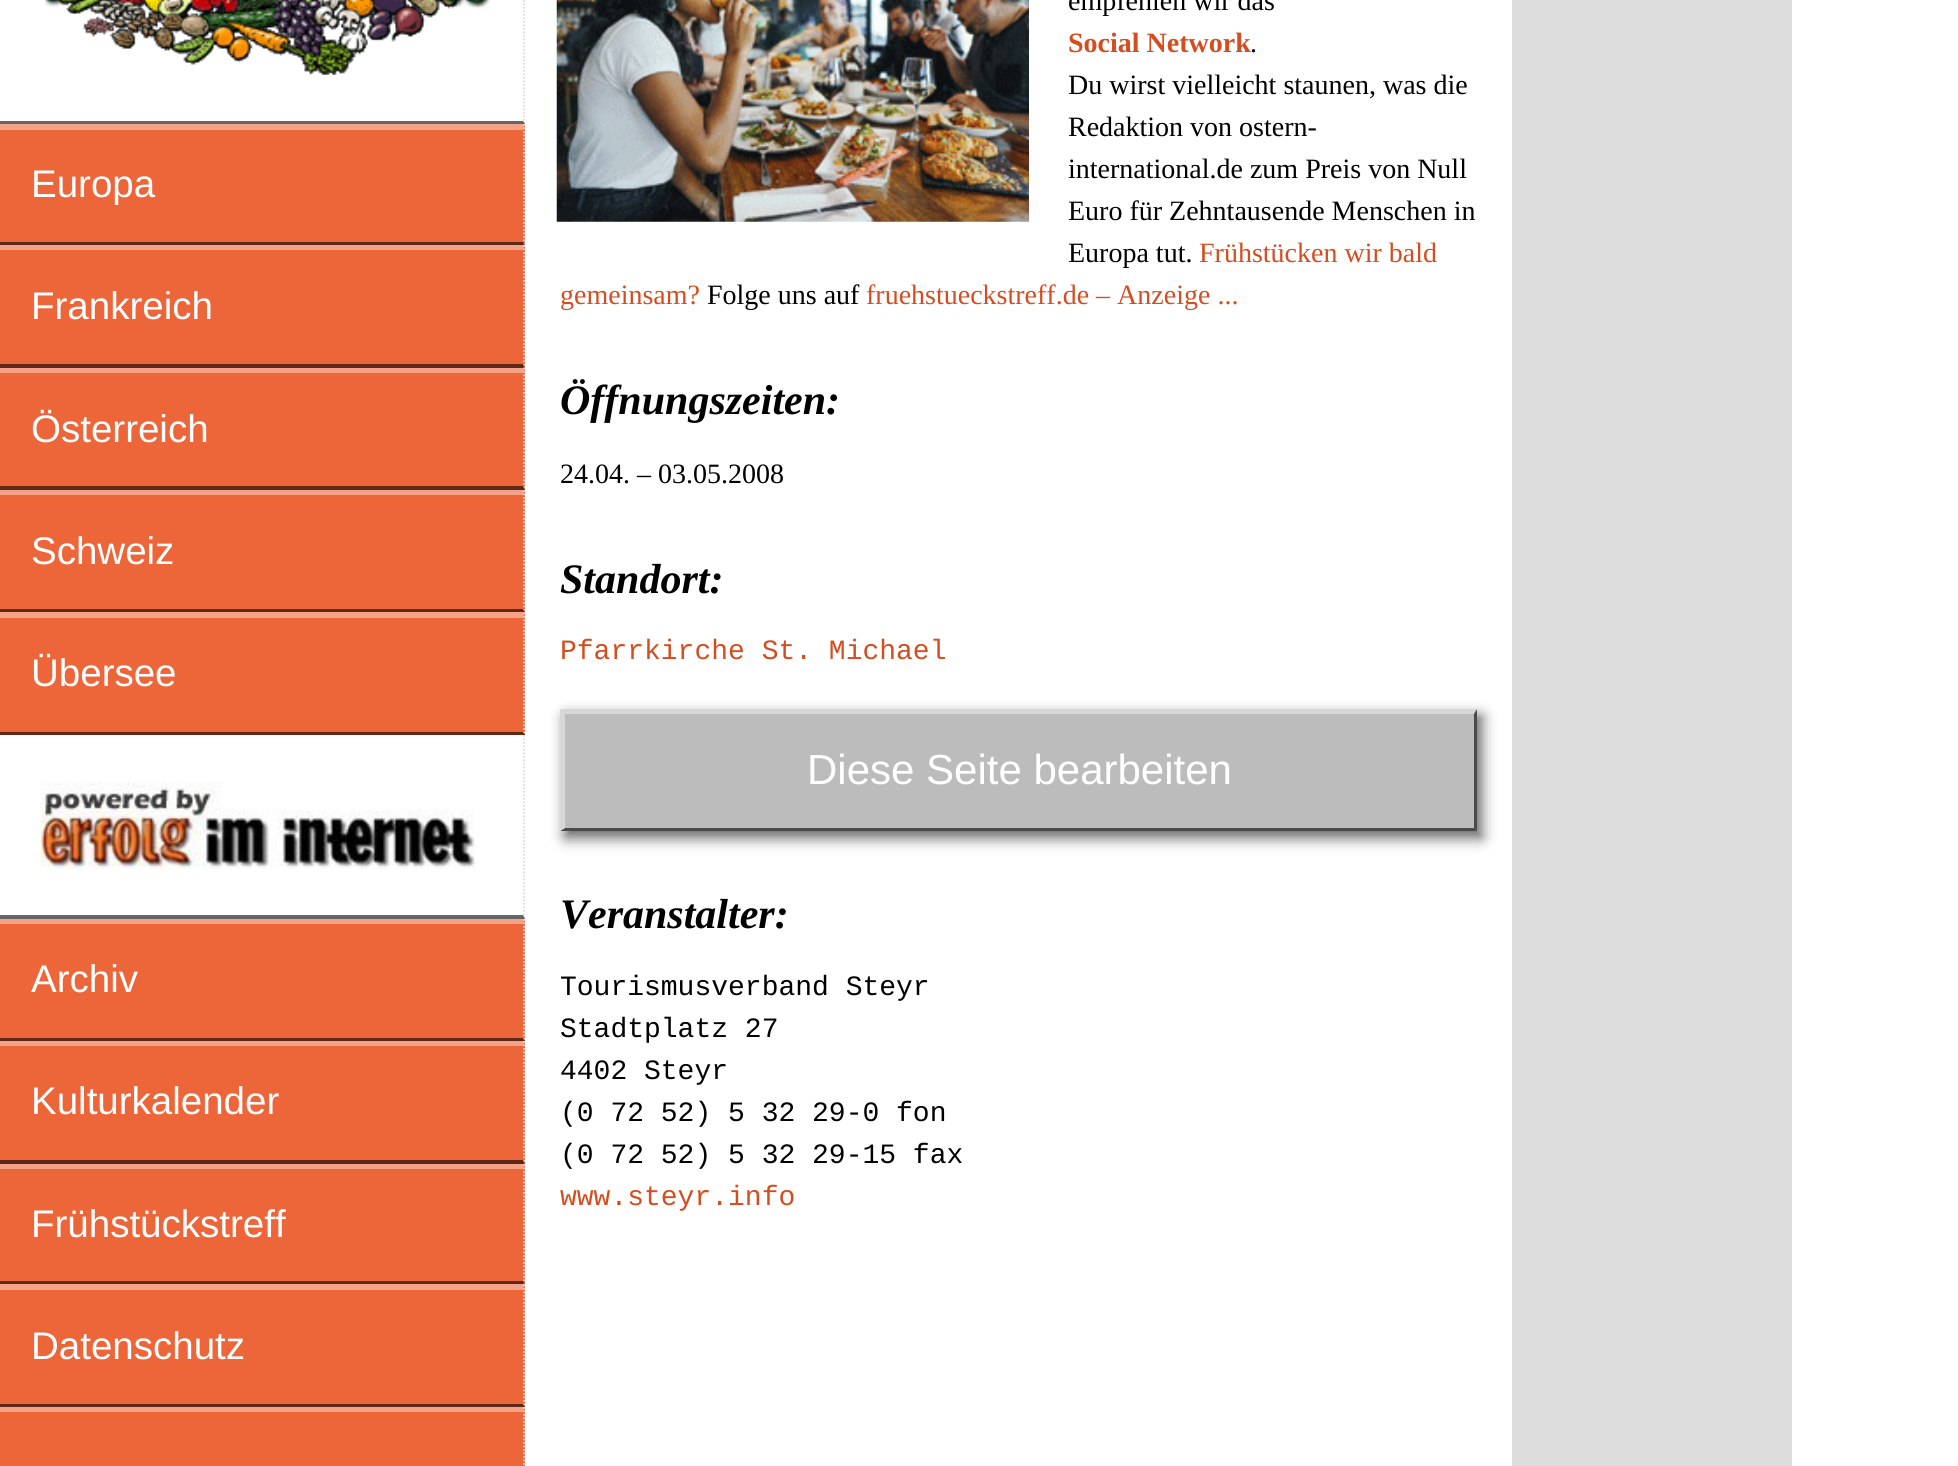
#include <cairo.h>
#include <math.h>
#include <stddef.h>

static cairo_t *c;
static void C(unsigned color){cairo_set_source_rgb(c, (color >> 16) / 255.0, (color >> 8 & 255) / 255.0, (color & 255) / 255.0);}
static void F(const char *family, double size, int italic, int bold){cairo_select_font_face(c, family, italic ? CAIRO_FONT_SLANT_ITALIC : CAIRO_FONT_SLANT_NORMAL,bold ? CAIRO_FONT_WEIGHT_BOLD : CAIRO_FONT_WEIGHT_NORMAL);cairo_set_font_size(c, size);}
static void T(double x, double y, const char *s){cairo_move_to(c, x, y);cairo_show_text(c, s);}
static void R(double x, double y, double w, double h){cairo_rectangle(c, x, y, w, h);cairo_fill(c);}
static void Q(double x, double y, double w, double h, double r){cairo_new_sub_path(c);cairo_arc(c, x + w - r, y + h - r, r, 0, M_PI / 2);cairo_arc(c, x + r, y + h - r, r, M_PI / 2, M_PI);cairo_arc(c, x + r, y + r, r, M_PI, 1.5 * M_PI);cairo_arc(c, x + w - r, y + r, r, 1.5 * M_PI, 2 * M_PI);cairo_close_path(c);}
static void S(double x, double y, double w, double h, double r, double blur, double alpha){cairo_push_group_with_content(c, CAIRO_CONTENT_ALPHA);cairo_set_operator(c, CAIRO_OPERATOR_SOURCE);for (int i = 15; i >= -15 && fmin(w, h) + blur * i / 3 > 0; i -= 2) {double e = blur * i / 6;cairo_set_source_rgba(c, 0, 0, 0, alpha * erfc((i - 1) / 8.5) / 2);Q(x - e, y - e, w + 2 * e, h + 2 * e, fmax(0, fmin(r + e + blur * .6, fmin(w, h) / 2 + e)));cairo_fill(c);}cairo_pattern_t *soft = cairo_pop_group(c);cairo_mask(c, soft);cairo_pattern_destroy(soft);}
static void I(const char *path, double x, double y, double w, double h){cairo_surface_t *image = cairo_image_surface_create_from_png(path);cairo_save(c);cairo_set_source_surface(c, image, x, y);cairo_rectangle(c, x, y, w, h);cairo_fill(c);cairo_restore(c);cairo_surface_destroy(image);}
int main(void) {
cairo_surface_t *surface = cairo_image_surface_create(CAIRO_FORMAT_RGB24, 1958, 1466);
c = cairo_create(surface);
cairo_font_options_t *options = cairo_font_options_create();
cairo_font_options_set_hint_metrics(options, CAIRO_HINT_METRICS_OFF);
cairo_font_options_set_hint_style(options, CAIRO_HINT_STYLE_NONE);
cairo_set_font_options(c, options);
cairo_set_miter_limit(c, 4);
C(0xffffff);
cairo_paint(c);
C(0xed6639);
R(0,124,525,1342);
cairo_new_path(c);
cairo_move_to(c,524,-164.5);
cairo_line_to(c,524,124);
C(0xdcdcdc);
cairo_set_line_width(c,1.8);
cairo_set_dash(c,(double[]){1.75,1.75},2,0);
cairo_stroke(c);
cairo_set_source_rgba(c,0,0,0,0.6);
cairo_new_path(c);
cairo_move_to(c,525,124);
cairo_line_to(c,0,124);
cairo_line_to(c,0,121);
cairo_line_to(c,523,121);
cairo_close_path(c);
cairo_fill(c);
I("1.png",44,0,447,75);
C(0xf4a388);
cairo_new_path(c);
cairo_move_to(c,0,124);
cairo_line_to(c,525,124);
cairo_line_to(c,523,130);
cairo_line_to(c,0,130);
cairo_close_path(c);
cairo_fill(c);
cairo_new_path(c);
cairo_move_to(c,524,124);
cairo_line_to(c,524,245);
C(0xdcdcdc);
cairo_stroke(c);
cairo_set_source_rgba(c,0,0,0,0.6);
cairo_new_path(c);
cairo_move_to(c,525,245);
cairo_line_to(c,0,245);
cairo_line_to(c,0,242);
cairo_line_to(c,523,242);
cairo_close_path(c);
cairo_fill(c);
F("Liberation Sans",38.5,0,0);
C(0xffffff);
T(31,197,"Europa");
C(0xf4a388);
cairo_new_path(c);
cairo_move_to(c,0,245);
cairo_line_to(c,525,245);
cairo_line_to(c,523,250);
cairo_line_to(c,0,250);
cairo_close_path(c);
cairo_fill(c);
cairo_new_path(c);
cairo_move_to(c,524,245);
cairo_line_to(c,524,367.5);
C(0xdcdcdc);
cairo_stroke(c);
cairo_set_source_rgba(c,0,0,0,0.6);
cairo_new_path(c);
cairo_move_to(c,525,368);
cairo_line_to(c,0,368);
cairo_line_to(c,0,364);
cairo_line_to(c,523,364);
cairo_close_path(c);
cairo_fill(c);
C(0xffffff);
T(31,319,"Frankreich");
C(0xf4a388);
cairo_new_path(c);
cairo_move_to(c,0,368);
cairo_line_to(c,525,368);
cairo_line_to(c,523,373);
cairo_line_to(c,0,373);
cairo_close_path(c);
cairo_fill(c);
cairo_new_path(c);
cairo_move_to(c,524,367.5);
cairo_line_to(c,524,490);
C(0xdcdcdc);
cairo_stroke(c);
cairo_set_source_rgba(c,0,0,0,0.6);
cairo_new_path(c);
cairo_move_to(c,525,490);
cairo_line_to(c,0,490);
cairo_line_to(c,0,486);
cairo_line_to(c,523,486);
cairo_close_path(c);
cairo_fill(c);
C(0xffffff);
T(31,442,"Österreich");
C(0xf4a388);
cairo_new_path(c);
cairo_move_to(c,0,490);
cairo_line_to(c,525,490);
cairo_line_to(c,523,495);
cairo_line_to(c,0,495);
cairo_close_path(c);
cairo_fill(c);
cairo_new_path(c);
cairo_move_to(c,524,490);
cairo_line_to(c,524,612.5);
C(0xdcdcdc);
cairo_stroke(c);
cairo_set_source_rgba(c,0,0,0,0.6);
cairo_new_path(c);
cairo_move_to(c,525,612);
cairo_line_to(c,0,612);
cairo_line_to(c,0,609);
cairo_line_to(c,523,609);
cairo_close_path(c);
cairo_fill(c);
C(0xffffff);
T(31,564,"Schweiz");
C(0xf4a388);
cairo_new_path(c);
cairo_move_to(c,0,612);
cairo_line_to(c,525,612);
cairo_line_to(c,523,618);
cairo_line_to(c,0,618);
cairo_close_path(c);
cairo_fill(c);
cairo_new_path(c);
cairo_move_to(c,524,612.5);
cairo_line_to(c,524,735);
C(0xdcdcdc);
cairo_stroke(c);
cairo_set_source_rgba(c,0,0,0,0.6);
cairo_new_path(c);
cairo_move_to(c,525,735);
cairo_line_to(c,0,735);
cairo_line_to(c,0,732);
cairo_line_to(c,523,732);
cairo_close_path(c);
cairo_fill(c);
C(0xffffff);
T(31,686,"Übersee");
R(0,735,525,184);
cairo_new_path(c);
cairo_move_to(c,524,735);
cairo_line_to(c,524,919);
C(0xdcdcdc);
cairo_stroke(c);
cairo_set_source_rgba(c,0,0,0,0.6);
cairo_new_path(c);
cairo_move_to(c,525,919);
cairo_line_to(c,0,919);
cairo_line_to(c,0,915);
cairo_line_to(c,523,915);
cairo_close_path(c);
cairo_fill(c);
I("2.png",40,782,435,87);
C(0xf4a388);
cairo_new_path(c);
cairo_move_to(c,0,919);
cairo_line_to(c,525,919);
cairo_line_to(c,523,924);
cairo_line_to(c,0,924);
cairo_close_path(c);
cairo_fill(c);
cairo_new_path(c);
cairo_move_to(c,524,919);
cairo_line_to(c,524,1041);
C(0xdcdcdc);
cairo_stroke(c);
cairo_set_source_rgba(c,0,0,0,0.6);
cairo_new_path(c);
cairo_move_to(c,525,1041);
cairo_line_to(c,0,1041);
cairo_line_to(c,0,1038);
cairo_line_to(c,523,1038);
cairo_close_path(c);
cairo_fill(c);
C(0xffffff);
T(31,992,"Archiv");
C(0xf4a388);
cairo_new_path(c);
cairo_move_to(c,0,1041);
cairo_line_to(c,525,1041);
cairo_line_to(c,523,1046);
cairo_line_to(c,0,1046);
cairo_close_path(c);
cairo_fill(c);
cairo_new_path(c);
cairo_move_to(c,524,1041);
cairo_line_to(c,524,1164);
C(0xdcdcdc);
cairo_stroke(c);
cairo_set_source_rgba(c,0,0,0,0.6);
cairo_new_path(c);
cairo_move_to(c,525,1164);
cairo_line_to(c,0,1164);
cairo_line_to(c,0,1160);
cairo_line_to(c,523,1160);
cairo_close_path(c);
cairo_fill(c);
C(0xffffff);
T(31,1114,"Kulturkalender");
C(0xf4a388);
cairo_new_path(c);
cairo_move_to(c,0,1164);
cairo_line_to(c,525,1164);
cairo_line_to(c,523,1169);
cairo_line_to(c,0,1169);
cairo_close_path(c);
cairo_fill(c);
cairo_new_path(c);
cairo_move_to(c,524,1164);
cairo_line_to(c,524,1284.5);
C(0xdcdcdc);
cairo_stroke(c);
cairo_set_source_rgba(c,0,0,0,0.6);
cairo_new_path(c);
cairo_move_to(c,525,1284);
cairo_line_to(c,0,1284);
cairo_line_to(c,0,1281);
cairo_line_to(c,523,1281);
cairo_close_path(c);
cairo_fill(c);
C(0xffffff);
T(31,1237,"Frühstückstreff");
cairo_set_source_rgba(c,1,1,1,0.4);
cairo_new_path(c);
cairo_move_to(c,0,1284);
cairo_line_to(c,525,1284);
cairo_line_to(c,523,1290);
cairo_line_to(c,0,1290);
cairo_close_path(c);
cairo_fill(c);
cairo_new_path(c);
cairo_move_to(c,524,1284.5);
cairo_line_to(c,524,1407);
C(0xdcdcdc);
cairo_stroke(c);
cairo_set_source_rgba(c,0,0,0,0.6);
cairo_new_path(c);
cairo_move_to(c,525,1407);
cairo_line_to(c,0,1407);
cairo_line_to(c,0,1404);
cairo_line_to(c,523,1404);
cairo_close_path(c);
cairo_fill(c);
C(0xffffff);
T(31,1359,"Datenschutz");
C(0xf4a388);
cairo_new_path(c);
cairo_move_to(c,0,1407);
cairo_line_to(c,525,1407);
cairo_line_to(c,523,1412);
cairo_line_to(c,0,1412);
cairo_close_path(c);
cairo_fill(c);
cairo_new_path(c);
cairo_move_to(c,524,1407);
cairo_line_to(c,524,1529.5);
C(0xdcdcdc);
cairo_stroke(c);
I("3.png",556,0,473,222);
F("Liberation Serif",28,0,0);
C(0x000000);
T(1068,10,"empfehlen wir das");
F("Liberation Serif",28,0,1);
C(0xd44d20);
T(1068,52,"Social Network");
F("Liberation Serif",28,0,0);
C(0x000000);
T(1250,52,".");
T(1068,94,"Du wirst vielleicht staunen, was die");
T(1068,136,"Redaktion von ostern-");
T(1068,178,"international.de zum Preis von Null");
T(1068,220,"Euro für Zehntausende Menschen in");
T(1068,262,"Europa tut.");
C(0xd44d20);
T(1199,262,"Frühstücken wir bald");
T(560,304,"gemeinsam?");
C(0x000000);
T(707,304,"Folge uns auf");
C(0xd44d20);
T(866,304,"fruehstueckstreff.de – Anzeige ...");
F("Liberation Serif",42,1,1);
C(0x000000);
T(560,414,"Öffnungszeiten:");
F("Liberation Serif",28,0,0);
T(560,483,"24.04. – 03.05.2008");
F("Liberation Serif",42,1,1);
T(560,593,"Standort:");
F("Liberation Mono",28,0,0);
C(0xd44d20);
T(560,659,"Pfarrkirche St. Michael");
C(0x000000);
S(565,716,917,122,0,7,.6);
C(0xbcbcbc);
R(565,714,909,114);
C(0xd7d7d7);
cairo_new_path(c);
cairo_move_to(c,560,709);
cairo_line_to(c,1477,709);
cairo_line_to(c,1474,714);
cairo_line_to(c,565,714);
cairo_close_path(c);
cairo_fill(c);
C(0x4b4b4b);
cairo_new_path(c);
cairo_move_to(c,1477,709);
cairo_line_to(c,1477,831);
cairo_line_to(c,1474,828);
cairo_line_to(c,1474,714);
cairo_close_path(c);
cairo_fill(c);
cairo_new_path(c);
cairo_move_to(c,1477,831);
cairo_line_to(c,560,831);
cairo_line_to(c,565,828);
cairo_line_to(c,1474,828);
cairo_close_path(c);
cairo_fill(c);
C(0xd7d7d7);
cairo_new_path(c);
cairo_move_to(c,560,831);
cairo_line_to(c,560,709);
cairo_line_to(c,565,714);
cairo_line_to(c,565,828);
cairo_close_path(c);
cairo_fill(c);
F("Liberation Sans",42,0,0);
C(0xffffff);
T(807,784,"Diese Seite bearbeiten");
F("Liberation Serif",42,1,1);
C(0x000000);
T(560,928,"Veranstalter:");
F("Liberation Mono",28,0,0);
T(560,995,"Tourismusverband Steyr");
T(560,1037,"Stadtplatz 27");
T(560,1079,"4402 Steyr");
T(560,1121,"(0 72 52) 5 32 29-0 fon");
T(560,1163,"(0 72 52) 5 32 29-15 fax");
C(0xd44d20);
T(560,1205,"www.steyr.info");
C(0xdcdcdc);
R(1512,0,280,1466);
cairo_surface_write_to_png(surface, "o.png");
cairo_font_options_destroy(options);
cairo_destroy(c);
cairo_surface_destroy(surface);
return 0;
}
